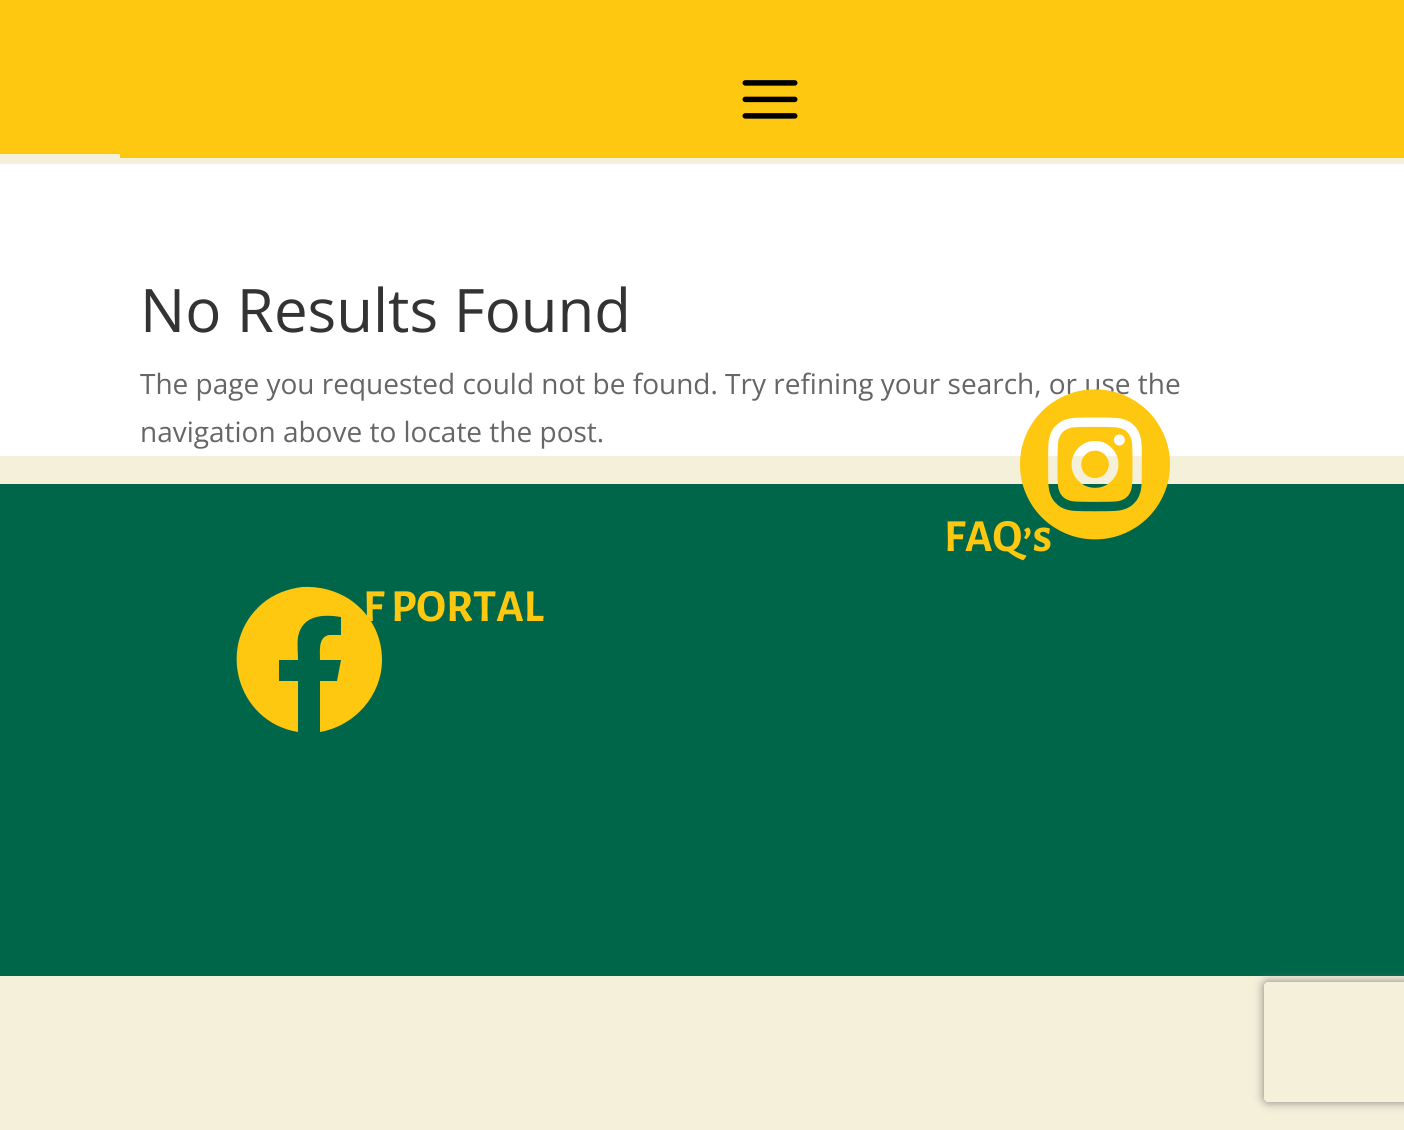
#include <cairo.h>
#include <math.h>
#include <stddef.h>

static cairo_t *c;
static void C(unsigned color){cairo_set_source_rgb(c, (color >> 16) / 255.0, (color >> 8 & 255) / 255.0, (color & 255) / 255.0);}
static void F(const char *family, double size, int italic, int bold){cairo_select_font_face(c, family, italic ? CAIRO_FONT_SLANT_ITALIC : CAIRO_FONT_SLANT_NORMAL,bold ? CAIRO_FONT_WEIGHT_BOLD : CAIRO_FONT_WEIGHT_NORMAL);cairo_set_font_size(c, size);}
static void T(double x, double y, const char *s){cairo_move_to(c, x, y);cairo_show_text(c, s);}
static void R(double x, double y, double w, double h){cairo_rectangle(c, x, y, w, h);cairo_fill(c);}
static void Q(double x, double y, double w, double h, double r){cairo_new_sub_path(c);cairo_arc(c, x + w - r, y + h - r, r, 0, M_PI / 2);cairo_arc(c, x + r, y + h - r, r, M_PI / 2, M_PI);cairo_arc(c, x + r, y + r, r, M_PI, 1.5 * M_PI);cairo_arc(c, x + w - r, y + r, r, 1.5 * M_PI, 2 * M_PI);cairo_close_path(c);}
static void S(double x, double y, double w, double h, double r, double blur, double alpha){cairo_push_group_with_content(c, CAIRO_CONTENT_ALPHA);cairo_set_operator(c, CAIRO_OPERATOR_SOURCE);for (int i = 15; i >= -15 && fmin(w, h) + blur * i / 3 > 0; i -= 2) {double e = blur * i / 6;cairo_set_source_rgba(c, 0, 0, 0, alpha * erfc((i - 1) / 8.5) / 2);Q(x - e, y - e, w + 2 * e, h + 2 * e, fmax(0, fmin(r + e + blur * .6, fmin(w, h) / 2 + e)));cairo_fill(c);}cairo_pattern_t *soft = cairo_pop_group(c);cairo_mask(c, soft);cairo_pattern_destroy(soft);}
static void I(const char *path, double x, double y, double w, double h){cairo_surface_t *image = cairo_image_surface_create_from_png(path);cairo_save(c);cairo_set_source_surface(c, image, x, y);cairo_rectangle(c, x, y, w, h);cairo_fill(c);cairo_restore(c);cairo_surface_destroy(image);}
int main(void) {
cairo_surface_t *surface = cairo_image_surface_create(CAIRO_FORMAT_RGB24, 1404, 1130);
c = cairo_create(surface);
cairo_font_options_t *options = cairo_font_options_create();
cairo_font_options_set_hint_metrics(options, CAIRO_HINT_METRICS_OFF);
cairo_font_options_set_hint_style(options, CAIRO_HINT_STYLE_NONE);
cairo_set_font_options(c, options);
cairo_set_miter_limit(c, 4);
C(0xf5f0da);
cairo_paint(c);
C(0xfec710);
R(0,0,120,154);
R(120,0,1284,158);
I("1.png",742,80,56,39);
C(0xffffff);
R(0,164,1404,292);
F("Open Sans",60,0,0);
C(0x333333);
T(140,332,"No Results Found");
F("Open Sans",28,0,0);
C(0x666666);
T(140,394,"The page you requested could not be found. Try refining your search, or use the");
T(140,442,"navigation above to locate the post.");
C(0x006649);
R(0,484,1404,492);
I("2.png",1020,389,150,151);
F("Alegreya Sans SC",46,0,1);
C(0xfec710);
T(944,551,"FAQ’s");
cairo_new_path(c);
cairo_move_to(c,382,660);
cairo_curve_to(c,382,695,355,726,320,732);
cairo_line_to(c,320,681);
cairo_line_to(c,337,681);
cairo_line_to(c,341,660);
cairo_line_to(c,320,660);
cairo_curve_to(c,320,651,318,637,329,635);
cairo_line_to(c,341,635);
cairo_line_to(c,341,617);
cairo_curve_to(c,323,614,302,615,298,637);
cairo_curve_to(c,297,645,298,652,298,660);
cairo_line_to(c,279,660);
cairo_line_to(c,279,681);
cairo_line_to(c,298,681);
cairo_line_to(c,298,732);
cairo_curve_to(c,236,722,215,643,263,603);
cairo_curve_to(c,274,594,287,589,302,587);
cairo_curve_to(c,318,586,335,590,349,599);
cairo_curve_to(c,370,613,382,635,382,660);
cairo_close_path(c);
cairo_fill(c);
T(363,621,"F PORTAL");
cairo_save(c);
cairo_set_fill_rule(c,CAIRO_FILL_RULE_EVEN_ODD);
cairo_new_path(c);
cairo_move_to(c,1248,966);
cairo_line_to(c,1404,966);
cairo_line_to(c,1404,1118);
cairo_line_to(c,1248,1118);
cairo_close_path(c);
cairo_move_to(c,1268,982);
cairo_line_to(c,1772,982);
cairo_curve_to(c,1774,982,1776,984,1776,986);
cairo_line_to(c,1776,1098);
cairo_curve_to(c,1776,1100,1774,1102,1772,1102);
cairo_line_to(c,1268,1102);
cairo_curve_to(c,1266,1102,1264,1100,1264,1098);
cairo_line_to(c,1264,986);
cairo_curve_to(c,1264,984,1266,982,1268,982);
cairo_close_path(c);
cairo_clip(c);
C(0x808080);
S(1264,982,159,120,4,5,1);
cairo_restore(c);
cairo_surface_write_to_png(surface, "o.png");
cairo_font_options_destroy(options);
cairo_destroy(c);
cairo_surface_destroy(surface);
return 0;
}
